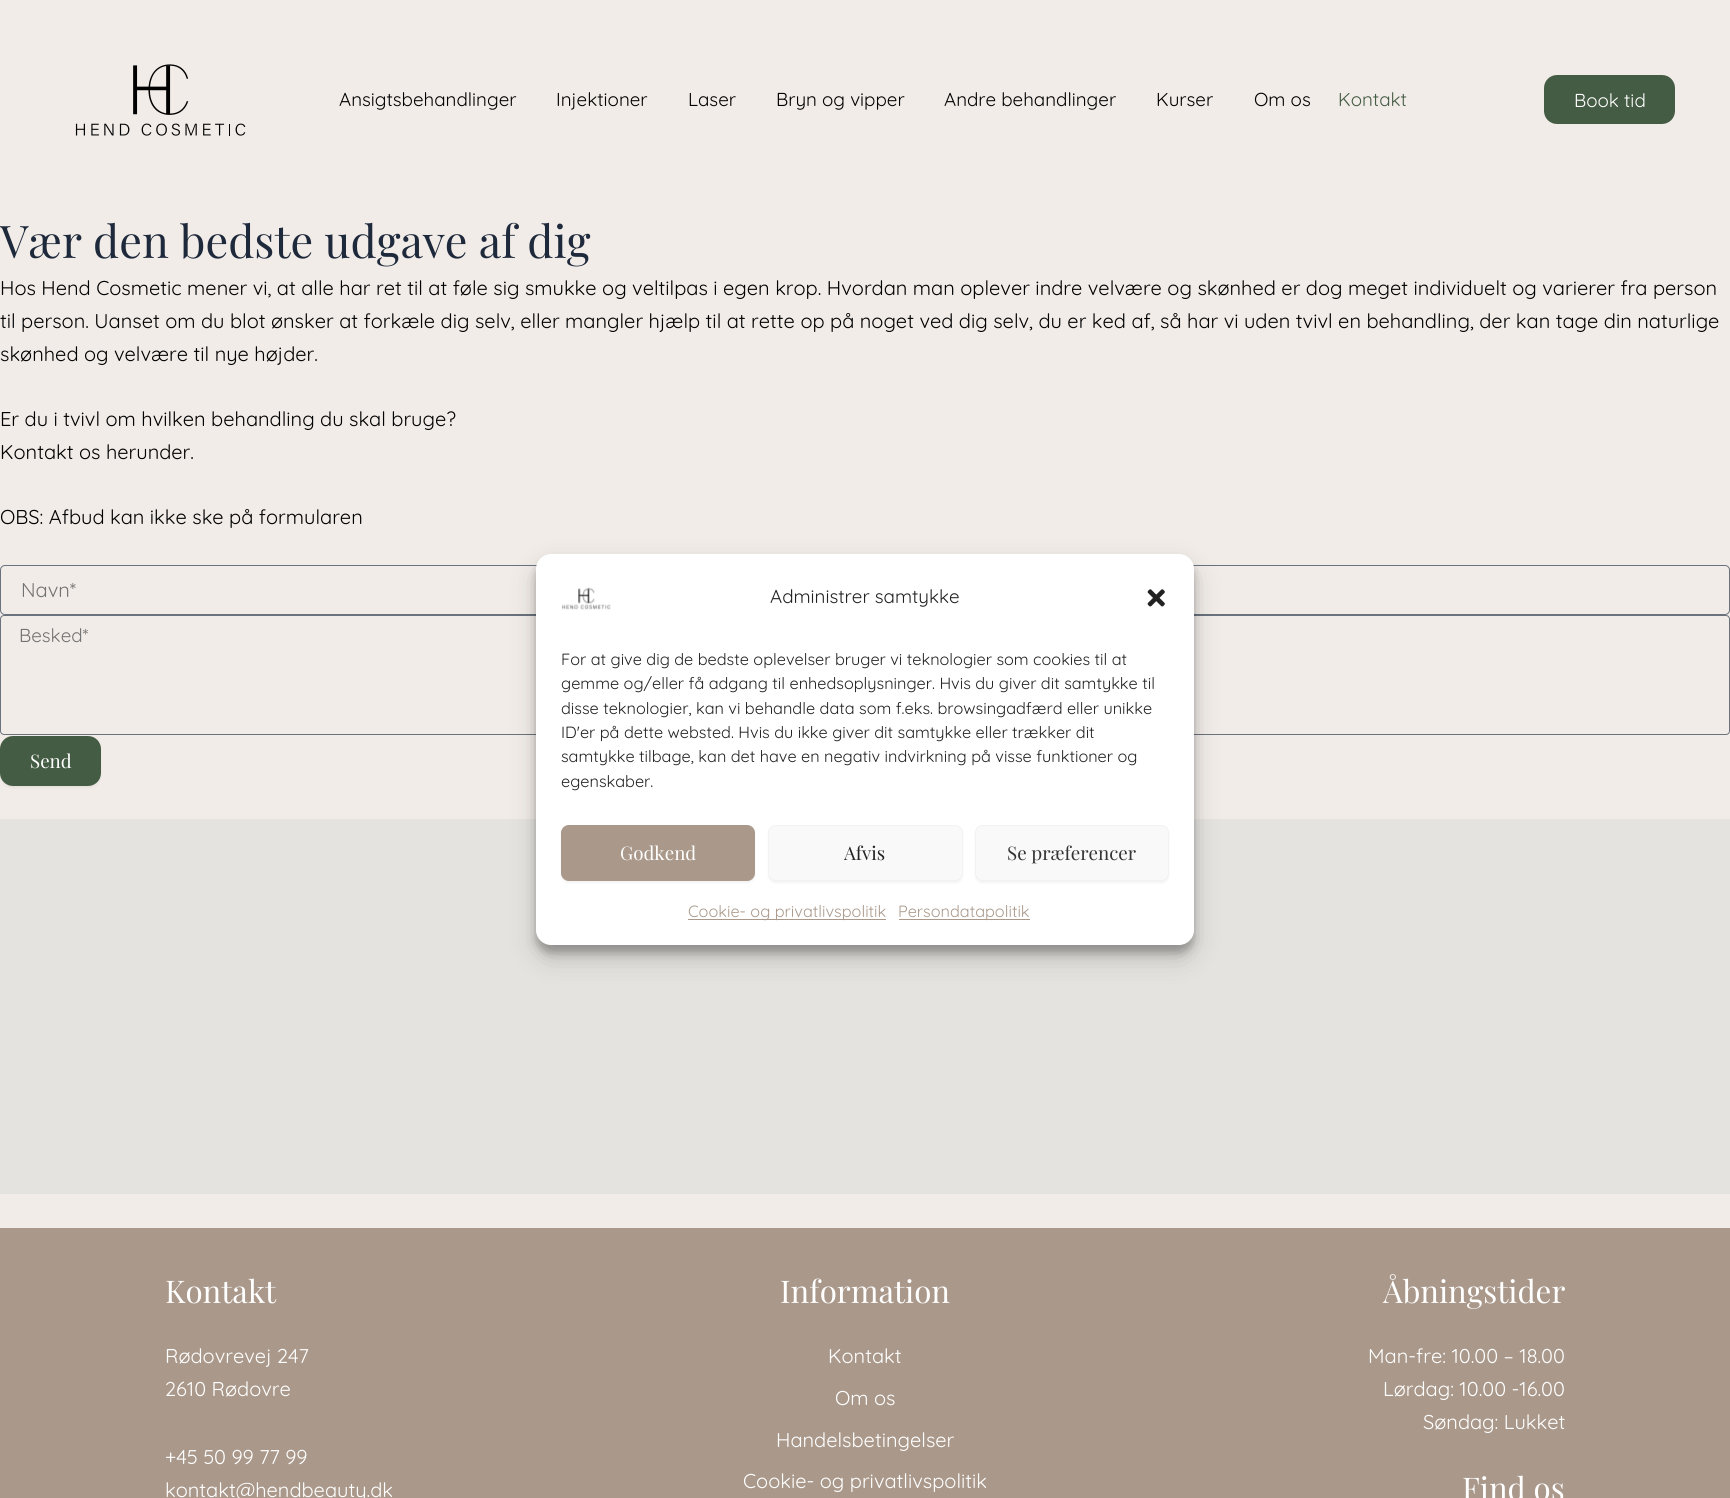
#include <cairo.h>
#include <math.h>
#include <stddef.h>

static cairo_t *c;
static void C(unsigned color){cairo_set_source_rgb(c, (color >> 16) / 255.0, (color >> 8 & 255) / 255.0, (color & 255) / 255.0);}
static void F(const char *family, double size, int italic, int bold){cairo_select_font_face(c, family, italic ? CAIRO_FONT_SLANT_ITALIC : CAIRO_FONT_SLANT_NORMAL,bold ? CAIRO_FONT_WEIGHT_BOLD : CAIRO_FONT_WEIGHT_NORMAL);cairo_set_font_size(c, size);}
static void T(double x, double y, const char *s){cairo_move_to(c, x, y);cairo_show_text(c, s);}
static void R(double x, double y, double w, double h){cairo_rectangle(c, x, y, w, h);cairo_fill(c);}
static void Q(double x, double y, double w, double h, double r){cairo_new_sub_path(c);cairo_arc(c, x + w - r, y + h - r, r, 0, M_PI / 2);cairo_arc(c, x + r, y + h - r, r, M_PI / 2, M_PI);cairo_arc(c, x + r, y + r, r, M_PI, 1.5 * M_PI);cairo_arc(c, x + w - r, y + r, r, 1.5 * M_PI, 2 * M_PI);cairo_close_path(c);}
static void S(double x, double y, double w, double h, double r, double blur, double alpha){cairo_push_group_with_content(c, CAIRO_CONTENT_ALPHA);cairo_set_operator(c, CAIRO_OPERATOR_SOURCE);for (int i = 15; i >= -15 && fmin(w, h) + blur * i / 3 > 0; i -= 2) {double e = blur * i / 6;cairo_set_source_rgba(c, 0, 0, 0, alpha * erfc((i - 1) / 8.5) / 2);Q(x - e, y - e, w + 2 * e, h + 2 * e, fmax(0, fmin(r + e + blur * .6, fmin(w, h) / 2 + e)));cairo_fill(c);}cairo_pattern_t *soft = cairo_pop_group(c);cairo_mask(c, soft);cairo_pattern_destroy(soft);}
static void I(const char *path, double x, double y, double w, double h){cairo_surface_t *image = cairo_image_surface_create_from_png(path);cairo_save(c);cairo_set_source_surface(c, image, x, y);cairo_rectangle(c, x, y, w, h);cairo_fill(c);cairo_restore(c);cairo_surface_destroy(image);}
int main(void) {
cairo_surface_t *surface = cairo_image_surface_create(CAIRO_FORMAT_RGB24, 1730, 1498);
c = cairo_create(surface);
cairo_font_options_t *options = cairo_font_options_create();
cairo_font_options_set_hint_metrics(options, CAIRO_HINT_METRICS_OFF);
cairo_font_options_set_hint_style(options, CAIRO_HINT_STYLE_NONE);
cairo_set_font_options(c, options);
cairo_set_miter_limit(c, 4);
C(0xf1ece8);
cairo_paint(c);
I("1.png",75,64,171,72);
F("Quicksand Light",18.75,0,0);
C(0x010101);
T(339,106,"Ansigtsbehandlinger");
T(556,106,"Injektioner");
T(688,106,"Laser");
T(776,106,"Bryn og vipper");
T(944,106,"Andre behandlinger");
T(1156,106,"Kurser");
T(1254,106,"Om os");
C(0x455c44);
T(1338,106,"Kontakt");
Q(1544,75,131,49,13);
cairo_fill(c);
C(0xffffff);
T(1574,107,"Book tid");
F("Playfair Display",45,0,0);
C(0x1e293b);
T(0,258,"Vær den bedste udgave af dig");
F("Quicksand Light",20,0,0);
C(0x010101);
T(0,295,"Hos Hend Cosmetic mener vi, at alle har ret til at føle sig smukke og veltilpas i egen krop. Hvordan man oplever indre velvære og skønhed er dog meget individuelt og varierer fra person");
T(0,328,"til person. Uanset om du blot ønsker at forkæle dig selv, eller mangler hjælp til at rette op på noget ved dig selv, du er ked af, så har vi uden tvivl en behandling, der kan tage din naturlige");
T(0,361,"skønhed og velvære til nye højder.");
T(0,426,"Er du i tvivl om hvilken behandling du skal bruge?");
T(0,459,"Kontakt os herunder.");
T(0,524,"OBS: Afbud kan ikke ske på formularen");
Q(.5,565.5,864,49,4.5);
C(0x69727d);
cairo_set_line_width(c,1);
cairo_stroke(c);
C(0x737272);
T(21,597,"Navn*");
Q(865.5,565.5,864,49,4.5);
C(0x69727d);
cairo_stroke(c);
Q(.5,615.5,1729,119,3.5);
cairo_stroke(c);
F("Quicksand Light",18.75,0,0);
C(0x737272);
T(19,642,"Besked*");
C(0x000000);
S(0,738,101,50,13,1,.05);
C(0x455c44);
Q(0,736,101,50,13);
cairo_fill(c);
F("Playfair Display",18.75,0,0);
C(0xffffff);
T(30,768,"Send");
C(0xe5e3df);
R(0,819,1730,375);
C(0xaa998b);
R(0,1228,1730,270);
F("Playfair Display",31.25,0,0);
C(0xffffff);
T(165,1303,"Kontakt");
F("Quicksand Light",20,0,0);
T(165,1363,"Rødovrevej 247");
T(165,1396,"2610 Rødovre");
T(165,1464,"+45 50 99 77 99");
T(165,1497,"kontakt@hendbeauty.dk");
F("Playfair Display",31.25,0,0);
T(780,1303,"Information");
F("Quicksand Light",20,0,0);
T(828,1363,"Kontakt");
T(835,1405,"Om os");
T(776,1447,"Handelsbetingelser");
T(743,1488,"Cookie- og privatlivspolitik");
F("Playfair Display",31.25,0,0);
T(1383,1303,"Åbningstider");
F("Quicksand Light",20,0,0);
T(1368,1363,"Man-fre: 10.00 – 18.00");
T(1383,1396,"Lørdag: 10.00 -16.00");
T(1423,1429,"Søndag: Lukket");
F("Playfair Display",31.25,0,0);
T(1462,1500,"Find os");
C(0x000000);
S(536,561,658,392,15,4,.23);
S(536,566,658,392,15,12.5,.19);
C(0xffffff);
Q(536,554,658,391,15);
cairo_fill(c);
I("2.png",562,587,49,23);
F("Quicksand Light",18.75,0,0);
C(0x222222);
T(770,603,"Administrer samtykke");
I("3.png",1147,589,18,18);
F("Quicksand Light",16.25,0,0);
T(561,665,"For at give dig de bedste oplevelser bruger vi teknologier som cookies til at");
T(561,689,"gemme og/eller få adgang til enhedsoplysninger. Hvis du giver dit samtykke til");
T(561,714,"disse teknologier, kan vi behandle data som f.eks. browsingadfærd eller unikke");
T(561,738,"ID'er på dette websted. Hvis du ikke giver dit samtykke eller trækker dit");
T(561,762,"samtykke tilbage, kan det have en negativ indvirkning på visse funktioner og");
T(561,787,"egenskaber.");
C(0x000000);
S(561,826,194,57,8,1,.05);
C(0xaa998b);
Q(561.5,825.5,193,55,7.5);
cairo_fill_preserve(c);
cairo_stroke(c);
F("Playfair Display",18.75,0,0);
C(0xffffff);
T(620,860,"Godkend");
C(0x000000);
S(768,826,195,57,8,1,.05);
C(0xf9f9f9);
Q(768.5,825.5,194,55,7.5);
cairo_fill_preserve(c);
C(0xf2f2f2);
cairo_stroke(c);
C(0x222222);
T(844,860,"Afvis");
C(0x000000);
S(975,826,194,57,8,1,.05);
C(0xf9f9f9);
Q(975.5,825.5,193,55,7.5);
cairo_fill_preserve(c);
C(0xf2f2f2);
cairo_stroke(c);
C(0x333333);
T(1007,860,"Se præferencer");
C(0xaa998b);
R(688,919,198,1);
F("Quicksand Light",16.25,0,0);
T(688,917,"Cookie- og privatlivspolitik");
R(899,919,131,1);
T(898,917,"Persondatapolitik");
cairo_surface_write_to_png(surface, "o.png");
cairo_font_options_destroy(options);
cairo_destroy(c);
cairo_surface_destroy(surface);
return 0;
}
